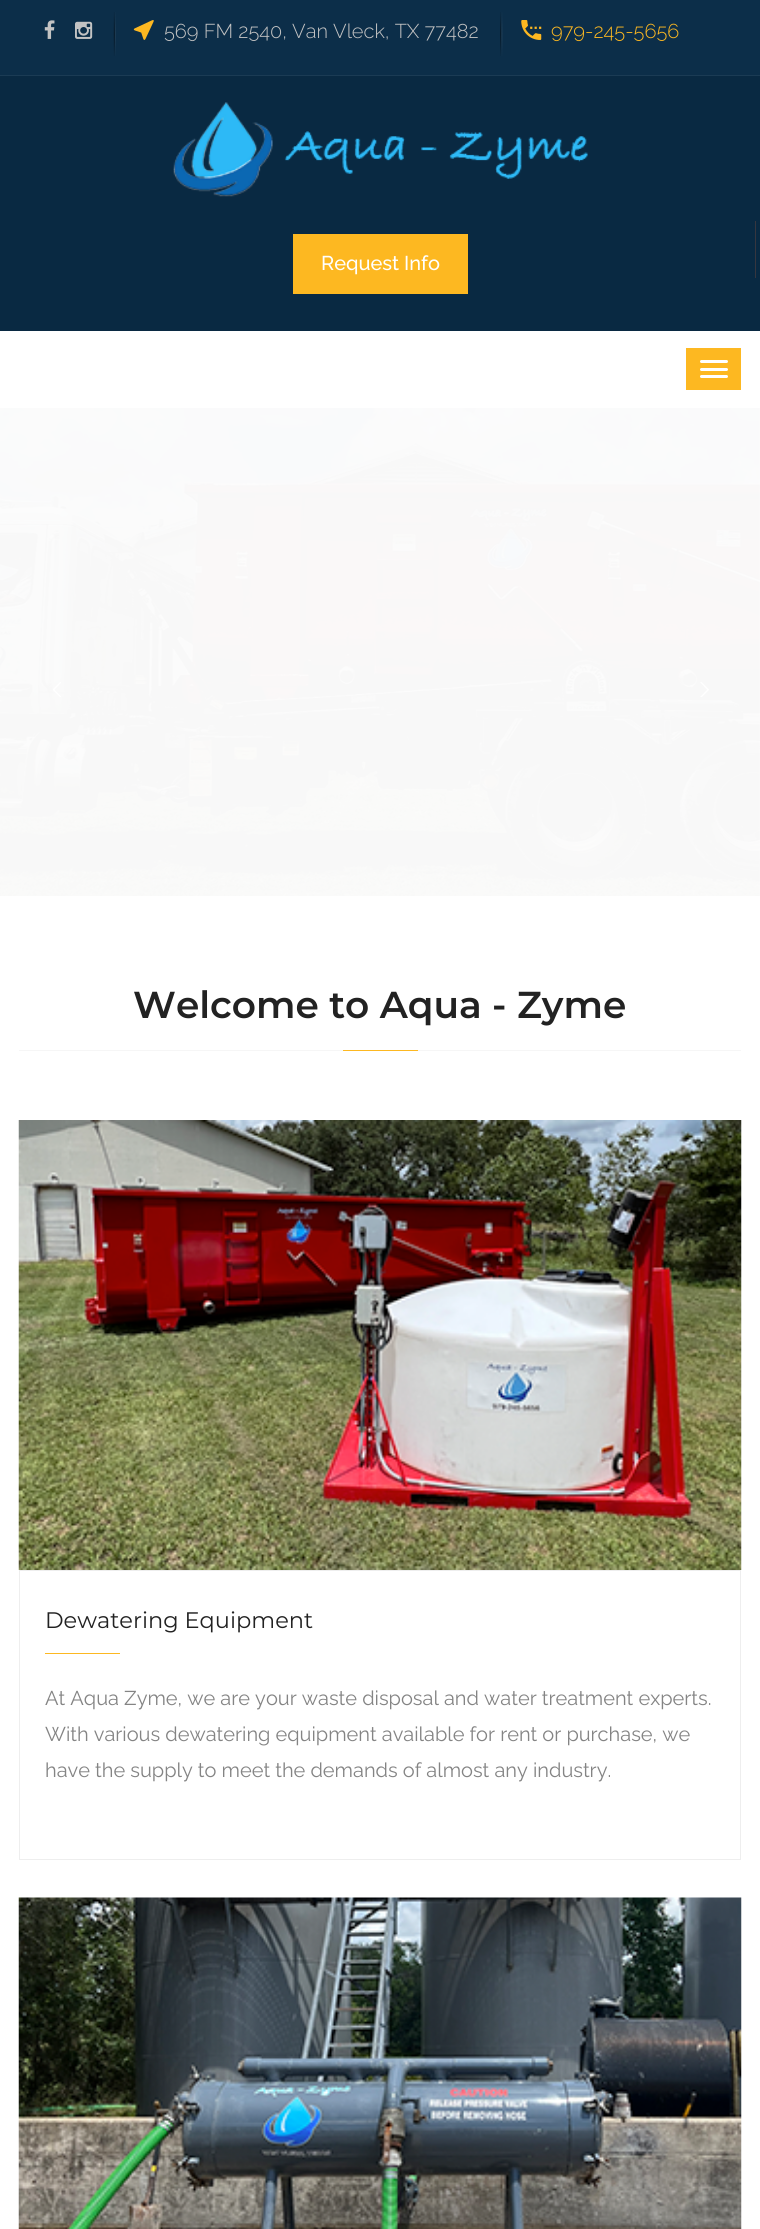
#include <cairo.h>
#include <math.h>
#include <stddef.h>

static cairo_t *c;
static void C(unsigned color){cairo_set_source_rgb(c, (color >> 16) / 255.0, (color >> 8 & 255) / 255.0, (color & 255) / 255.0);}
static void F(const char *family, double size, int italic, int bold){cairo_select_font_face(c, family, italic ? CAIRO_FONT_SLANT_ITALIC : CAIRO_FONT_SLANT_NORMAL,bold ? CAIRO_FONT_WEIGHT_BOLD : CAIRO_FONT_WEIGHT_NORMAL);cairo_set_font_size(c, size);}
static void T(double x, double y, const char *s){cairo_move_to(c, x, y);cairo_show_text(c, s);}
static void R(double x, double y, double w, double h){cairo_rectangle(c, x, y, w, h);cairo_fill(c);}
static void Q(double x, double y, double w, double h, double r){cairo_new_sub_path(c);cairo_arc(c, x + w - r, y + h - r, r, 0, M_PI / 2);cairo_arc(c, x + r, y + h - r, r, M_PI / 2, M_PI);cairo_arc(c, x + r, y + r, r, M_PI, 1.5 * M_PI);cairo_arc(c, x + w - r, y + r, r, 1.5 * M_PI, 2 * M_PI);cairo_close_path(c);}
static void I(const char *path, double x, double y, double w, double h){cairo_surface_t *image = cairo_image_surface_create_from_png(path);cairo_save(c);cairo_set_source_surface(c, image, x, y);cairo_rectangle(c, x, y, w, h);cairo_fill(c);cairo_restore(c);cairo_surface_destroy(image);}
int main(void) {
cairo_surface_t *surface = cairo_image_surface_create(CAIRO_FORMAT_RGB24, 760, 2229);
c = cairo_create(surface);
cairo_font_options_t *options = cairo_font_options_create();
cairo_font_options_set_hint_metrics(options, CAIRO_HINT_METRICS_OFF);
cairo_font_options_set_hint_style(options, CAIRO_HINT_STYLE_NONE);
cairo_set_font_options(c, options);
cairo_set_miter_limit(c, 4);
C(0xffffff);
cairo_paint(c);
C(0x0c2e49);
R(0,0,760,75);
C(0x1b3b54);
R(0,75,760,1);
I("1.png",44,20,11,19);
I("2.png",75,21,18,18);
I("3.png",113,12,3,44);
I("4.png",133,20,21,20);
F("Raleway Light",20,0,0);
C(0xc3c3c3);
T(164,38,"569 FM 2540, Van Vleck, TX 77482");
I("5.png",500,12,3,44);
I("6.png",521,20,21,20);
C(0xfdb821);
T(551,38,"979-245-5656");
C(0x092942);
R(0,76,760,255);
I("7.png",173,102,415,95);
C(0xfdb821);
R(293,234,175,60);
F("Raleway Medium",20,0,0);
C(0xffffff);
T(321,270,"Request Info");
C(0x36363f);
R(755,221,1,57);
C(0xfdb821);
R(686,348,55,42);
C(0xffffff);
Q(700,360,28,3,1.5);
cairo_fill(c);
Q(700,368,28,3,1.5);
cairo_fill(c);
Q(700,375,28,3,1.5);
cairo_fill(c);
I("8.png",0,408,760,488);
I("9.png",53,682,8,15);
I("10.png",700,682,9,15);
C(0xf6f6f6);
R(19,1050,722,1);
F("Montserrat SemiBold",37.5,0,0);
C(0x222222);
T(133,1018,"Welcome to Aqua - Zyme");
C(0xfdb821);
R(343,1050,75,1);
I("11.png",18,1120,724,450);
cairo_rectangle(c,19.5,1570.5,721,289);
C(0xeeeeee);
cairo_set_line_width(c,1);
cairo_stroke(c);
F("Montserrat",22.5,0,0);
C(0x222222);
T(45,1628,"Dewatering Equipment");
C(0xfdb821);
R(45,1653,75,1);
F("Raleway",20,0,0);
C(0x848484);
T(45,1705,"At Aqua Zyme, we are your waste disposal and water treatment experts.");
T(45,1741,"With various dewatering equipment available for rent or purchase, we");
T(45,1777,"have the supply to meet the demands of almost any industry.");
I("12.png",18,1897,724,332);
cairo_surface_write_to_png(surface, "o.png");
cairo_font_options_destroy(options);
cairo_destroy(c);
cairo_surface_destroy(surface);
return 0;
}
